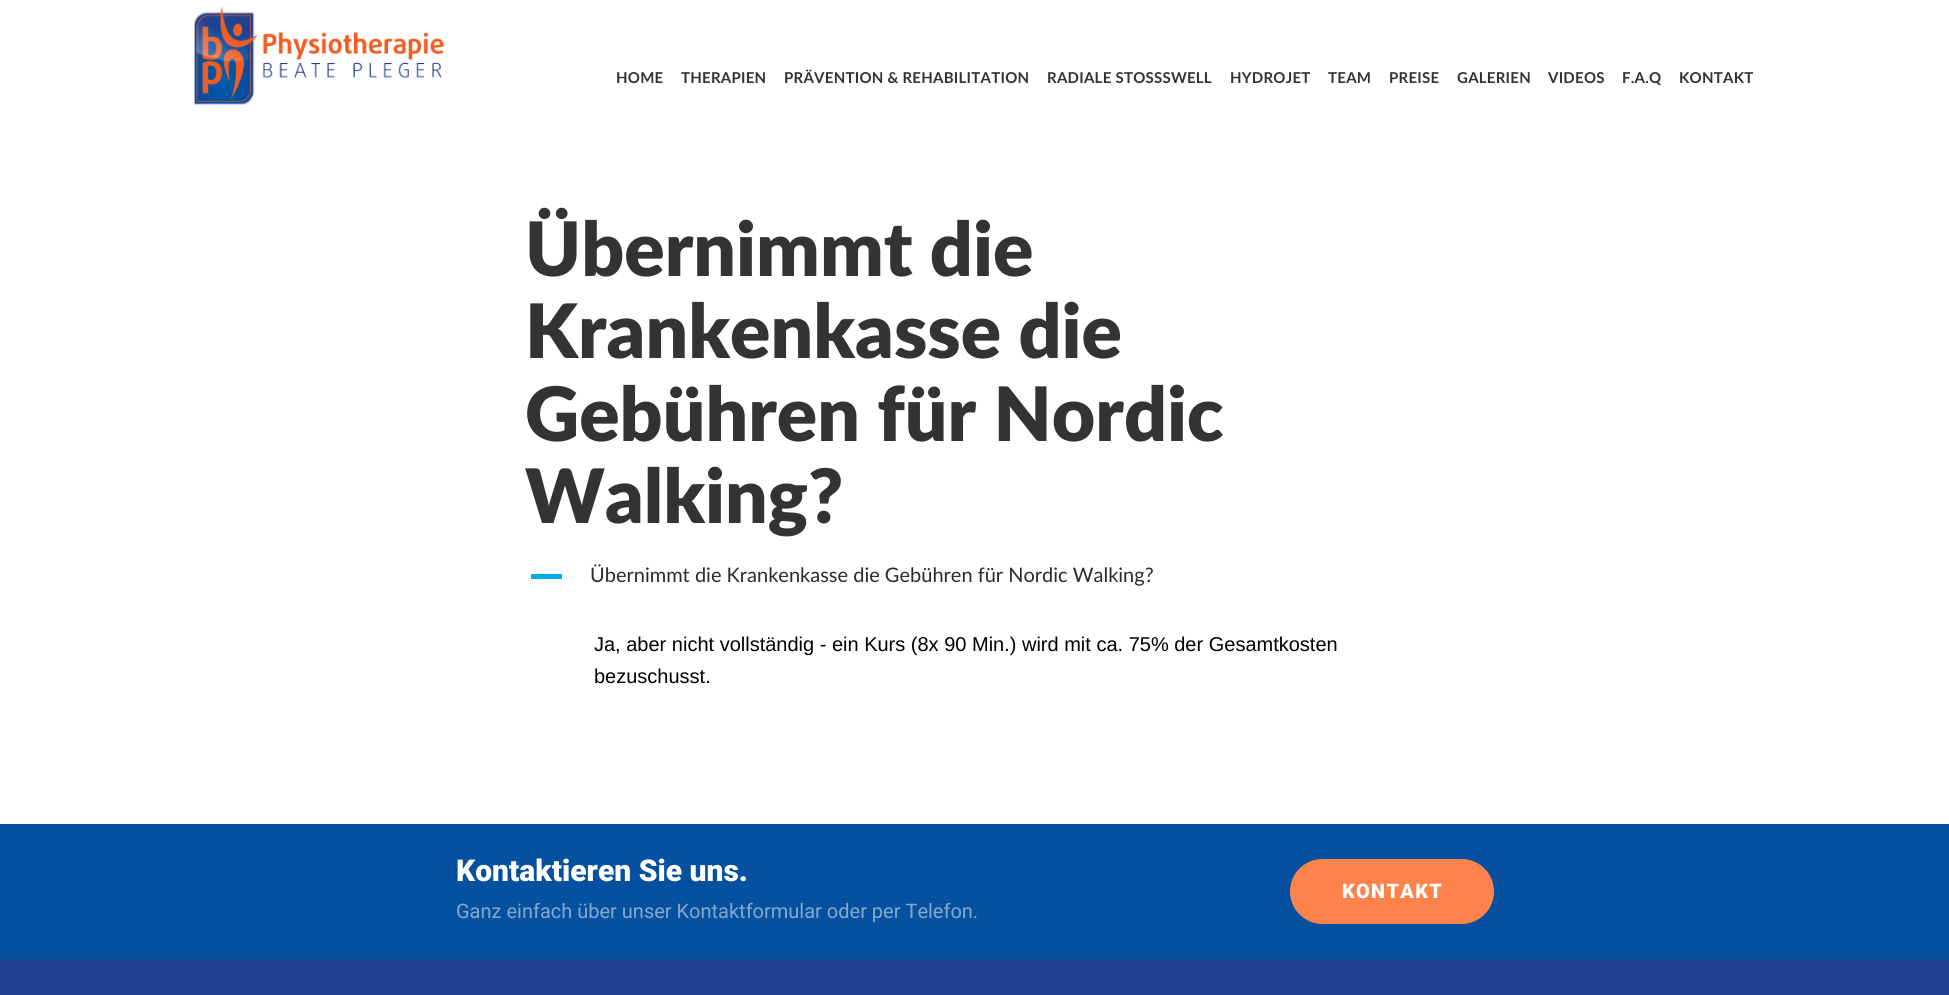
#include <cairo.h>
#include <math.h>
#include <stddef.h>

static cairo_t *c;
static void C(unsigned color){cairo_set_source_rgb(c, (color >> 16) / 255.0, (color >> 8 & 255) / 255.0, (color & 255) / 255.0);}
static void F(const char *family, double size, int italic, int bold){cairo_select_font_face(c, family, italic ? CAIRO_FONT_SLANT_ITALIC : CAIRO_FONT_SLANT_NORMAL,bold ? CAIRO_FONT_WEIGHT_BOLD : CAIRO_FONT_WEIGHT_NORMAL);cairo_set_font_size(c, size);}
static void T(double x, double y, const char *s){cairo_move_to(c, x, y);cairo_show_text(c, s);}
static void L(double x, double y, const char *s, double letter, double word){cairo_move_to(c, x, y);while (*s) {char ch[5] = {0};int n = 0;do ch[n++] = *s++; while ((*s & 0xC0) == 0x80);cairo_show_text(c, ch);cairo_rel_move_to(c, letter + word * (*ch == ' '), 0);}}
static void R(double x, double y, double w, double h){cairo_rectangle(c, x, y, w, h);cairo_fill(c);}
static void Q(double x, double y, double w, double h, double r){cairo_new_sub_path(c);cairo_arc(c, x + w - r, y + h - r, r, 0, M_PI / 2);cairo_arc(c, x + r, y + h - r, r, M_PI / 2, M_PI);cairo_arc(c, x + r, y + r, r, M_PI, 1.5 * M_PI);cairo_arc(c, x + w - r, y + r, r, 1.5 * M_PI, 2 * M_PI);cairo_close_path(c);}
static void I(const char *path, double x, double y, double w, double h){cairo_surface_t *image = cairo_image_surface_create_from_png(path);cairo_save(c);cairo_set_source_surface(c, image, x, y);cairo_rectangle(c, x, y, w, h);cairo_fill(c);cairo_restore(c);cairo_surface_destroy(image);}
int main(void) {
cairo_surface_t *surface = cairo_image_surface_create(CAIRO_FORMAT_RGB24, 1949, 995);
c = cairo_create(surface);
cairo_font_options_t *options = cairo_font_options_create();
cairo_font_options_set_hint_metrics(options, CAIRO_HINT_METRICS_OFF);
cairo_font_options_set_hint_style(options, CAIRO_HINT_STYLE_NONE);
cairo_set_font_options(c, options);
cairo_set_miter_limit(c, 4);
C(0xffffff);
cairo_paint(c);
I("1.png",194,6,251,99);
F("Lato",15,0,1);
C(0x333333);
L(616,83,"HOME",.25,0);
L(681,83,"THERAPIEN",.25,0);
L(784,83,"PRÄVENTION & REHABILITATION",.25,0);
L(1047,83,"RADIALE STOSSSWELL",.25,0);
L(1230,83,"HYDROJET",.25,0);
L(1328,83,"TEAM",.25,0);
L(1389,83,"PREISE",.25,0);
L(1457,83,"GALERIEN",.25,0);
L(1548,83,"VIDEOS",.25,0);
L(1622,83,"F.A.Q",.25,0);
L(1679,83,"KONTAKT",.25,0);
F("Lato Black",75,0,0);
T(525,276,"Übernimmt die");
T(525,358,"Krankenkasse die");
T(525,441,"Gebühren für Nordic");
T(525,523,"Walking?");
C(0x00adef);
R(531,574,31,5);
F("Lato",20,0,0);
C(0x2b2c27);
T(590,582,"Übernimmt die Krankenkasse die Gebühren für Nordic Walking?");
F("Liberation Sans",20,0,0);
C(0x000000);
T(594,651,"Ja, aber nicht vollständig - ein Kurs (8x 90 Min.) wird mit ca. 75% der Gesamtkosten");
T(594,683,"bezuschusst.");
C(0x06519f);
R(0,824,1949,135);
F("Roboto Black",30,0,0);
C(0xffffff);
T(456,881,"Kontaktieren Sie uns.");
F("Roboto",20,0,0);
C(0x83a8cf);
T(456,918,"Ganz einfach über unser Kontaktformular oder per Telefon.");
C(0xfd834c);
Q(1290.5,859.5,203,64,32);
cairo_fill_preserve(c);
cairo_set_line_width(c,1);
cairo_stroke(c);
F("Roboto Black",20,0,0);
C(0xffffff);
L(1342,898,"KONTAKT",1.25,0);
C(0x23408f);
R(0,959,1949,36);
cairo_surface_write_to_png(surface, "o.png");
cairo_font_options_destroy(options);
cairo_destroy(c);
cairo_surface_destroy(surface);
return 0;
}
